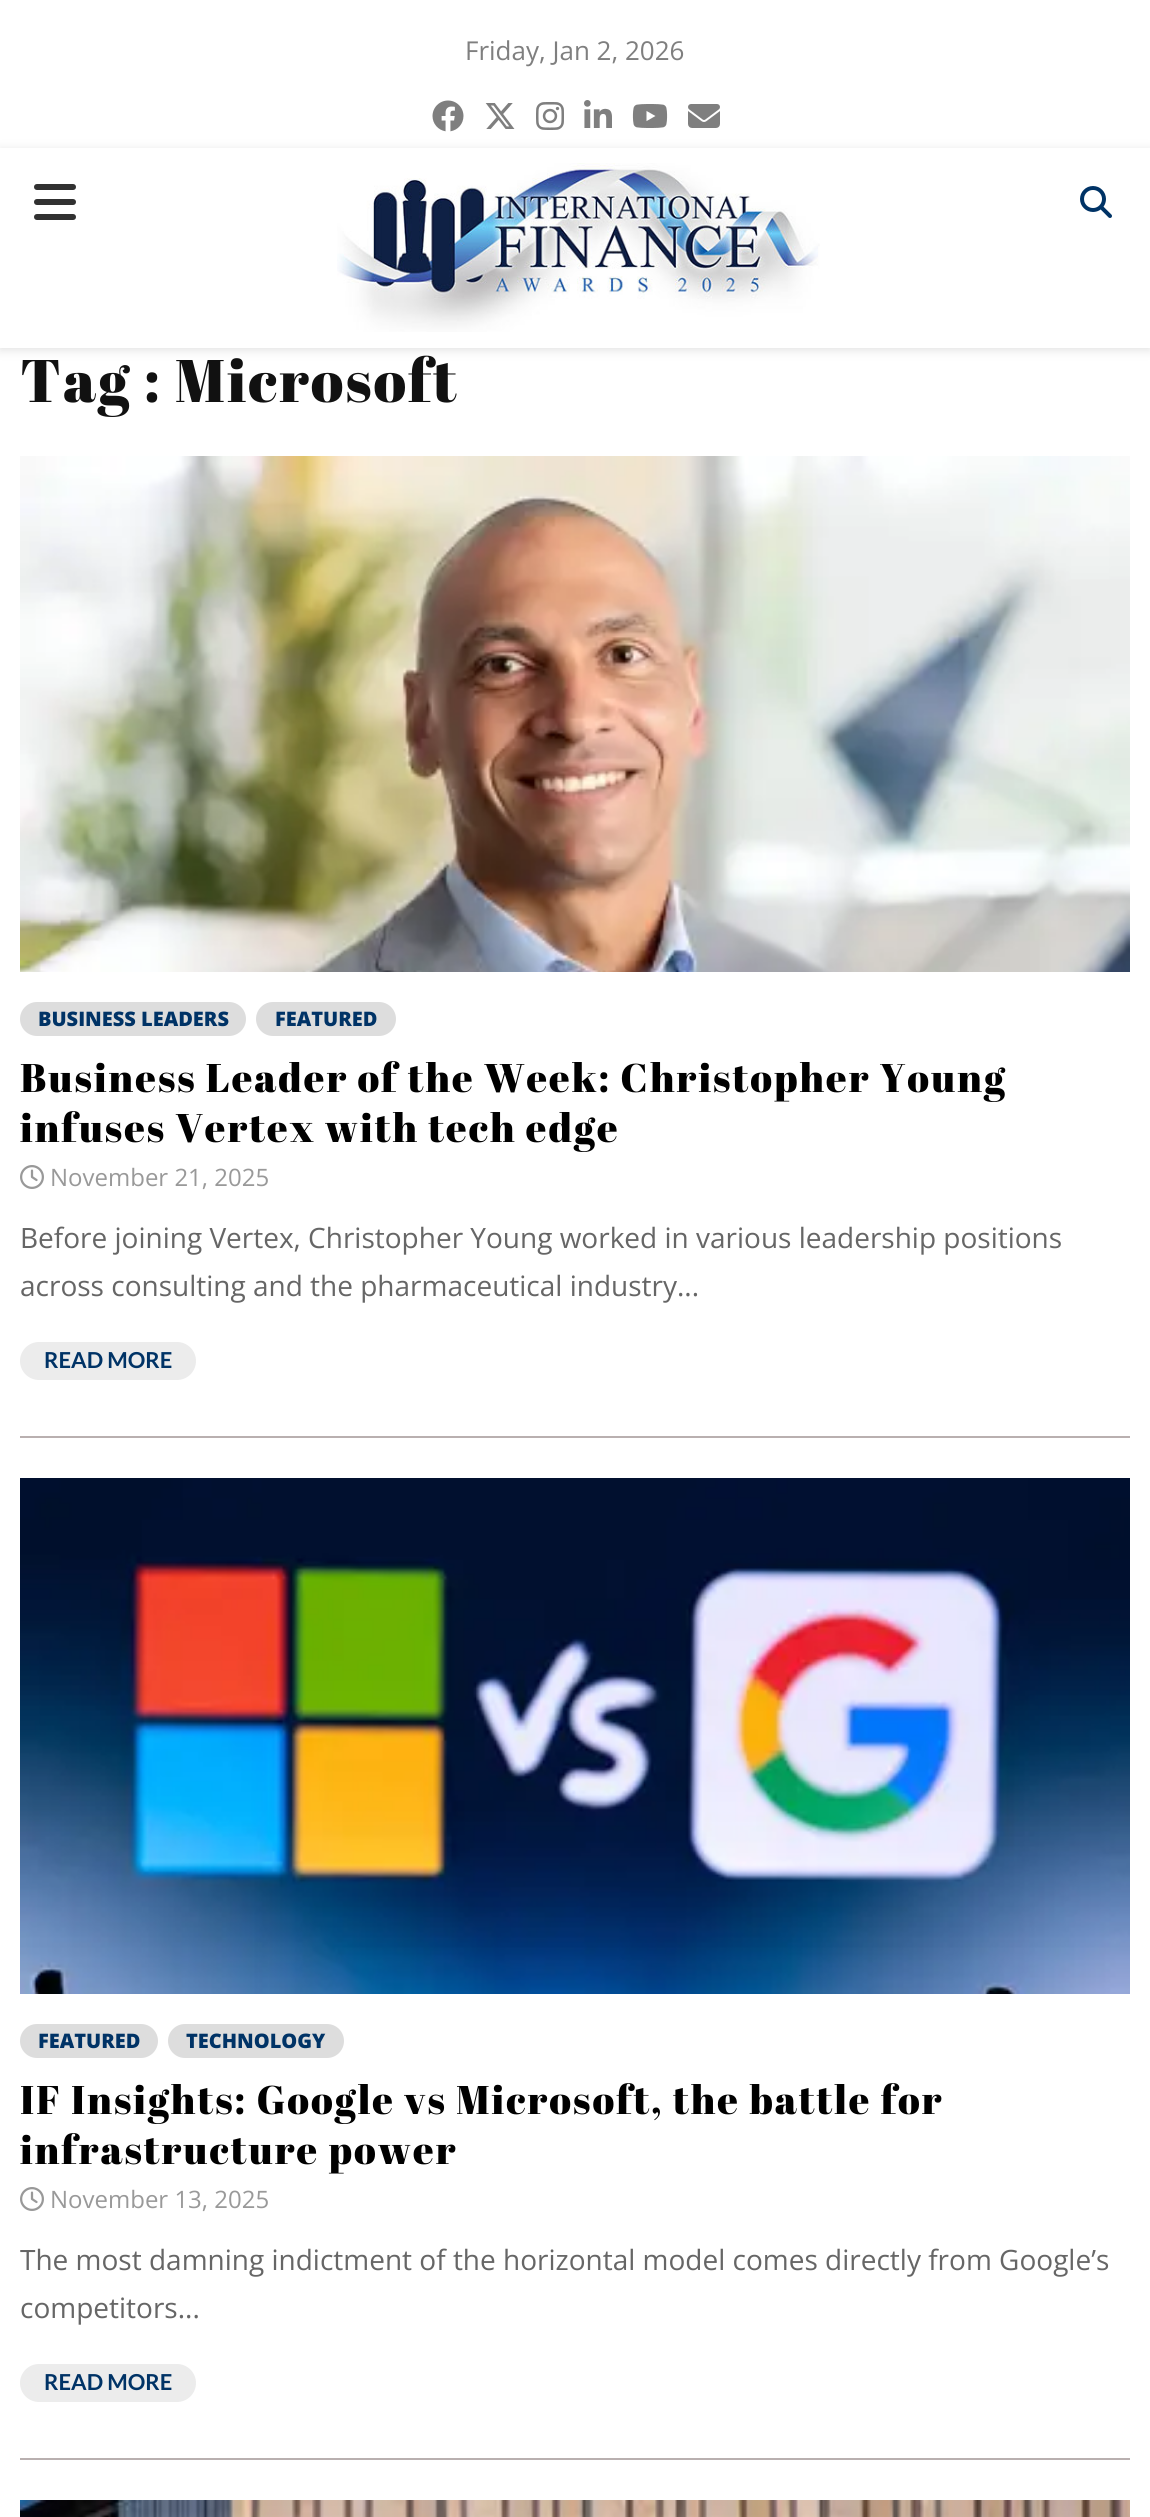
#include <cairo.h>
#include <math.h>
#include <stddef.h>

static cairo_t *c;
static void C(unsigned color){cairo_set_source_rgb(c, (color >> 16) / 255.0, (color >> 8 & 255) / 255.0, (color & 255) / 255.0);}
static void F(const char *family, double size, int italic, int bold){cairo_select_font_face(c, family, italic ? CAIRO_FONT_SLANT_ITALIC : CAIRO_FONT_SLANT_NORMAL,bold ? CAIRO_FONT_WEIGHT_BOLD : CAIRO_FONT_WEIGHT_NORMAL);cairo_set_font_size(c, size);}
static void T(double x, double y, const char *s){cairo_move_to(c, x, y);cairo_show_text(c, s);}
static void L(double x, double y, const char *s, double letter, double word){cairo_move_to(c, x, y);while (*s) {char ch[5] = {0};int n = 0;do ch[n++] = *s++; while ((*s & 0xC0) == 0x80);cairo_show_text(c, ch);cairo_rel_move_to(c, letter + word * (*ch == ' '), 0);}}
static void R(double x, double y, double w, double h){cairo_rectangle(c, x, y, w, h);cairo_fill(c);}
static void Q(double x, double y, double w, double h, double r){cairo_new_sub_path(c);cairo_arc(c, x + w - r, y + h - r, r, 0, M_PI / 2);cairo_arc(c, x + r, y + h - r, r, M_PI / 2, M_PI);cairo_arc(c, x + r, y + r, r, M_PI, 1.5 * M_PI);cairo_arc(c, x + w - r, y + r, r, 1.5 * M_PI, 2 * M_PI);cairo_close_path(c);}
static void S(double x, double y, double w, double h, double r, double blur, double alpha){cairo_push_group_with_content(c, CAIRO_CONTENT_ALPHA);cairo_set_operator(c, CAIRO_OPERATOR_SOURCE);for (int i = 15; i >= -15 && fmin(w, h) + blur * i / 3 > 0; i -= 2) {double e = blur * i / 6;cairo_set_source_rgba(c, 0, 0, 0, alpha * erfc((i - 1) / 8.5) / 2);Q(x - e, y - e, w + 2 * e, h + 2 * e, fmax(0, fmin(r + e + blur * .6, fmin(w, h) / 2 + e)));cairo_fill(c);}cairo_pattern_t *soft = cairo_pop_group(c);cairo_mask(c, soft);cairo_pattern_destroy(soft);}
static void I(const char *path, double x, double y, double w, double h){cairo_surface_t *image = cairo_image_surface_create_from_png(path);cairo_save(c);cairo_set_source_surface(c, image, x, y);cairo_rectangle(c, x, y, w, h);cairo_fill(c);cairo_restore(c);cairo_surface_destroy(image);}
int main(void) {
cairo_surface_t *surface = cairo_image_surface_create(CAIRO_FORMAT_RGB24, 1150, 2517);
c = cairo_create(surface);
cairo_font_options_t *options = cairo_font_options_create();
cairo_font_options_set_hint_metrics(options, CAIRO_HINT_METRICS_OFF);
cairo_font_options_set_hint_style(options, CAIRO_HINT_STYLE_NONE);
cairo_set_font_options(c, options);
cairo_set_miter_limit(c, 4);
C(0xffffff);
cairo_paint(c);
F("Open Sans",26,0,0);
C(0x7f7f7f);
T(465,60,"Friday, Jan 2, 2026");
I("1.png",432,100,32,32);
I("2.png",485,103,30,26);
I("3.png",536,102,28,28);
I("4.png",584,100,28,28);
I("5.png",632,104,36,24);
I("6.png",688,104,32,24);
cairo_save(c);
cairo_set_fill_rule(c,CAIRO_FILL_RULE_EVEN_ODD);
cairo_new_path(c);
cairo_move_to(c,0,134);
cairo_line_to(c,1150,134);
cairo_line_to(c,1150,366);
cairo_line_to(c,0,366);
cairo_close_path(c);
cairo_move_to(c,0,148);
cairo_line_to(c,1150,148);
cairo_line_to(c,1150,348);
cairo_line_to(c,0,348);
cairo_close_path(c);
cairo_clip(c);
C(0xbebebe);
S(0,150,1150,200,0,5,.46);
cairo_restore(c);
I("7.png",34,184,42,36);
I("8.png",337,163,483,169);
I("9.png",1080,186,32,32);
F("Abril Fatface",60,0,0);
C(0x111111);
L(20,402,"Tag : Microsoft",2,0);
C(0xb9b0b0);
R(20,1436,1110,2);
I("10.png",20,456,1110,516);
C(0xdddddd);
Q(20,1002,226,34,17);
cairo_fill(c);
F("Open Sans ExtraBold",20,0,0);
C(0x003366);
T(38,1026,"BUSINESS LEADERS");
C(0xdddddd);
Q(256,1002,140,34,17);
cairo_fill(c);
C(0x003366);
T(275,1026,"FEATURED");
F("Abril Fatface",40,0,0);
C(0x000000);
L(20,1092,"Business Leader of the Week: Christopher Young",2,0);
L(20,1142,"infuses Vertex with tech edge",2,0);
I("11.png",20,1165,24,24);
F("Open Sans",24,0,0);
C(0x999999);
T(50,1186,"November 21, 2025");
F("Open Sans",28,0,0);
C(0x666666);
T(20,1248,"Before joining Vertex, Christopher Young worked in various leadership positions");
T(20,1296,"across consulting and the pharmaceutical industry...");
C(0xececec);
Q(20,1342,176,38,19);
cairo_fill(c);
F("Lato",22,0,1);
C(0x003366);
T(44,1368,"READ MORE");
C(0xb9b0b0);
R(20,2458,1110,2);
I("12.png",20,1478,1110,516);
C(0xdddddd);
Q(20,2024,138,34,17);
cairo_fill(c);
F("Open Sans ExtraBold",20,0,0);
C(0x003366);
T(38,2048,"FEATURED");
C(0xdddddd);
Q(168,2024,176,34,17);
cairo_fill(c);
C(0x003366);
T(186,2048,"TECHNOLOGY");
F("Abril Fatface",40,0,0);
C(0x000000);
L(20,2114,"IF Insights: Google vs Microsoft, the battle for",2,0);
L(20,2164,"infrastructure power",2,0);
I("11.png",20,2187,24,24);
F("Open Sans",24,0,0);
C(0x999999);
T(50,2208,"November 13, 2025");
F("Open Sans",28,0,0);
C(0x666666);
T(20,2270,"The most damning indictment of the horizontal model comes directly from Google’s");
T(20,2318,"competitors...");
C(0xececec);
Q(20,2364,176,38,19);
cairo_fill(c);
F("Lato",22,0,1);
C(0x003366);
T(44,2390,"READ MORE");
I("13.png",20,2500,1110,17);
cairo_surface_write_to_png(surface, "o.png");
cairo_font_options_destroy(options);
cairo_destroy(c);
cairo_surface_destroy(surface);
return 0;
}
